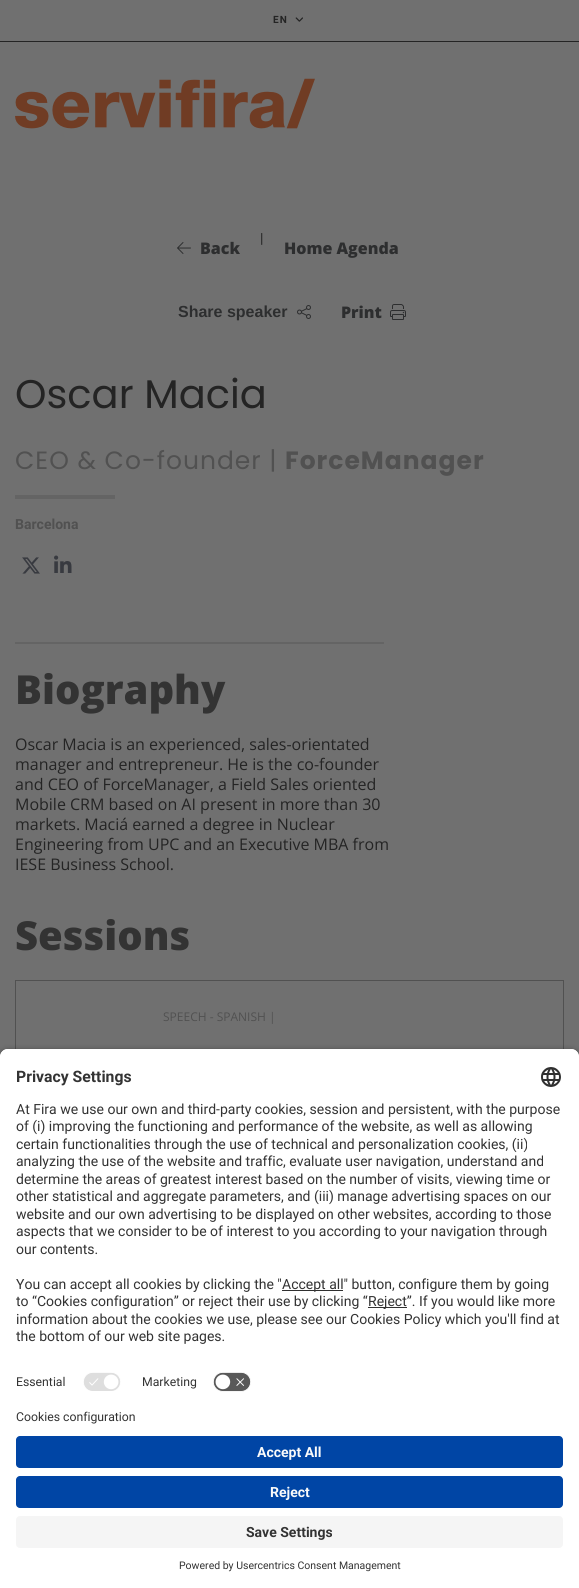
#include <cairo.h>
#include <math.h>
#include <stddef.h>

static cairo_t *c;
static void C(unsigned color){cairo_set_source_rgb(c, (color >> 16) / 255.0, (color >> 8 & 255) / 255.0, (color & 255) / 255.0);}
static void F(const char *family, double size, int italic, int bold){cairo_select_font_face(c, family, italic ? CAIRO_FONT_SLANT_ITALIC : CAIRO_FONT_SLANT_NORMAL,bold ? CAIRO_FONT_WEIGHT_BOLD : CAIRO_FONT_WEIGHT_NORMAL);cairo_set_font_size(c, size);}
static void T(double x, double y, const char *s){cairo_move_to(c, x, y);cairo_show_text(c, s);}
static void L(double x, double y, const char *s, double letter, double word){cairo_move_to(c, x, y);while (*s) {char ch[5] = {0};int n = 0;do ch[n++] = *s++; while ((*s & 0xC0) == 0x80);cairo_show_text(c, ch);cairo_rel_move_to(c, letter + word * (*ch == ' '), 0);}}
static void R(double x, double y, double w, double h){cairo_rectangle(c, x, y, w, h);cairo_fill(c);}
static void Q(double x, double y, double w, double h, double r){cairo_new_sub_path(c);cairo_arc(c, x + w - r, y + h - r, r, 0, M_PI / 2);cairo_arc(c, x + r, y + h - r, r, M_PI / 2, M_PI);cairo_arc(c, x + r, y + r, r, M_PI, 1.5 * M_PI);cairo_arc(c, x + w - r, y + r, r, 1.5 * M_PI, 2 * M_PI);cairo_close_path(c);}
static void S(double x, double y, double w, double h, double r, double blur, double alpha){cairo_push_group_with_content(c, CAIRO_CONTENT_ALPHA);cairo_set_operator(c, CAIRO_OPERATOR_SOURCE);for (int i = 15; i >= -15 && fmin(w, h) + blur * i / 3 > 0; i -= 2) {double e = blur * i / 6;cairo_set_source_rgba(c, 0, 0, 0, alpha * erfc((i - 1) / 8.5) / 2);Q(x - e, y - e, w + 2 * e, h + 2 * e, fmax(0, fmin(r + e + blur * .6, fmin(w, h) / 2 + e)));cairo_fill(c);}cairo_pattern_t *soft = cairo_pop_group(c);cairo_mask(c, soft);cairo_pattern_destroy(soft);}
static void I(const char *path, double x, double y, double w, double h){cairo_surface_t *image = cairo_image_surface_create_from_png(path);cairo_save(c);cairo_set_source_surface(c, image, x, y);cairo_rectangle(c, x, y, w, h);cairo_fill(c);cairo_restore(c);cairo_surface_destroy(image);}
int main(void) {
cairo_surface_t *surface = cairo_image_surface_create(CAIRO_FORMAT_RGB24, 579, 1588);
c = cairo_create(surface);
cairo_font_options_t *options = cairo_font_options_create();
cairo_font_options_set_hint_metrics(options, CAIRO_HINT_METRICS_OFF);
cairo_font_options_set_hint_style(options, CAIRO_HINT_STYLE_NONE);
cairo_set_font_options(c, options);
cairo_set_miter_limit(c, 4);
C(0x707070);
cairo_paint(c);
C(0x242424);
R(0,41,579,1);
F("Heebo",10,0,1);
L(273,23,"EN",1,0);
I("1.png",295,17,8,5);
I("2.png",15,78,300,51);
F("Heebo",14,0,0);
T(260,243,"|");
I("3.png",177,242,14,12);
F("Open Sans ExtraBold",16,0,0);
C(0x2d2e2f);
T(200,254,"Back");
T(284,254,"Home Agenda");
F("Liberation Sans",16,0,1);
T(178,317,"Share speaker");
I("4.png",297,305,14,14);
F("Open Sans ExtraBold",16,0,0);
T(341,318,"Print");
I("5.png",390,304,16,16);
F("Poppins",40,0,0);
C(0x242424);
T(15,408,"Oscar Macia");
F("Poppins",25,0,0);
C(0x515151);
L(15,469,"CEO & Co-founder |",1,0);
F("Poppins",25,0,1);
L(285,469,"ForceManager",1,0);
C(0x646464);
R(15,495,100,4);
F("Heebo",14,0,1);
C(0x515151);
T(15,529,"Barcelona");
I("6.png",22,557,18,17);
I("7.png",54,555,18,18);
C(0x646464);
R(15,642,369,2);
F("Open Sans ExtraBold",40,0,0);
C(0x333333);
T(15,704,"Biography");
F("Open Sans",16,0,0);
C(0x242424);
T(15,750,"Oscar Macia is an experienced, sales-orientated");
T(15,770,"manager and entrepreneur. He is the co-founder");
T(15,790,"and CEO of ForceManager, a Field Sales oriented");
T(15,810,"Mobile CRM based on AI present in more than 30");
T(15,830,"markets. Maciá earned a degree in Nuclear");
T(15,850,"Engineering from UPC and an Executive MBA from");
T(15,870,"IESE Business School.");
F("Open Sans ExtraBold",40,0,0);
C(0x333333);
T(15,950,"Sessions");
cairo_rectangle(c,15.5,980.5,548,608);
C(0x515151);
cairo_set_line_width(c,1);
cairo_stroke(c);
F("Open Sans",12,0,0);
T(163,1021,"SPEECH - SPANISH |");
C(0x000000);
S(0,1052,579,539,8,3.5,.8);
C(0xffffff);
cairo_new_path(c);
cairo_move_to(c,8,1049);
cairo_line_to(c,571,1049);
cairo_curve_to(c,575.5,1049,579,1052.5,579,1057);
cairo_line_to(c,579,1410);
cairo_line_to(c,0,1410);
cairo_line_to(c,0,1057);
cairo_curve_to(c,0,1052.5,3.5,1049,8,1049);
cairo_close_path(c);
cairo_fill(c);
cairo_new_path(c);
cairo_move_to(c,8,1049);
cairo_line_to(c,571,1049);
cairo_curve_to(c,575.5,1049,579,1052.5,579,1057);
cairo_line_to(c,579,1366);
cairo_line_to(c,0,1366);
cairo_line_to(c,0,1057);
cairo_curve_to(c,0,1052.5,3.5,1049,8,1049);
cairo_close_path(c);
cairo_fill(c);
F("Roboto",15.75,0,1);
C(0x333333);
T(16,1082,"Privacy Settings");
I("8.png",541,1067,20,20);
F("Roboto",14,0,0);
T(16,1114,"At Fira we use our own and third-party cookies, session and persistent, with the purpose");
T(16,1131,"of (i) improving the functioning and performance of the website, as well as allowing");
T(16,1149,"certain functionalities through the use of technical and personalization cookies, (ii)");
T(16,1166,"analyzing the use of the website and traffic, evaluate user navigation, understand and");
T(16,1184,"determine the areas of greatest interest based on the number of visits, viewing time or");
T(16,1201,"other statistical and aggregate parameters, and (iii) manage advertising spaces on our");
T(16,1219,"website and our own advertising to be displayed on other websites, according to those");
T(16,1236,"aspects that we consider to be of interest to you according to your navigation through");
T(16,1254,"our contents.");
T(16,1289,"You can accept all cookies by clicking the \"");
C(0x303030);
R(282,1290,61,1);
C(0x333333);
T(282,1289,"Accept all\" button, configure them by going");
T(16,1306,"to “Cookies configuration” or reject their use by clicking “");
C(0x303030);
R(368,1307,39,1);
C(0x333333);
T(368,1306,"Reject”. If you would like more");
T(16,1324,"information about the cookies we use, please see our Cookies Policy which you'll find at");
T(16,1341,"the bottom of our web site pages.");
F("Roboto",12.25,0,0);
T(16,1386,"Essential");
I("9.png",83,1372,38,19);
T(142,1386,"Marketing");
I("10.png",213,1372,38,20);
C(0xffffff);
R(0,1410,579,178);
C(0x333333);
T(16,1421,"Cookies configuration");
C(0x0045a5);
Q(16,1436,547,32,4);
cairo_fill(c);
F("Roboto",14,0,1);
C(0xfafafa);
T(257,1457,"Accept All");
C(0x0045a5);
Q(16,1476,547,32,4);
cairo_fill(c);
C(0xfafafa);
T(270,1497,"Reject");
C(0xf5f5f5);
Q(16,1516,547,32,4);
cairo_fill(c);
C(0x333333);
T(246,1537,"Save Settings");
F("Roboto",10.5,0,0);
T(179,1569,"Powered by Usercentrics Consent Management");
cairo_surface_write_to_png(surface, "o.png");
cairo_font_options_destroy(options);
cairo_destroy(c);
cairo_surface_destroy(surface);
return 0;
}
